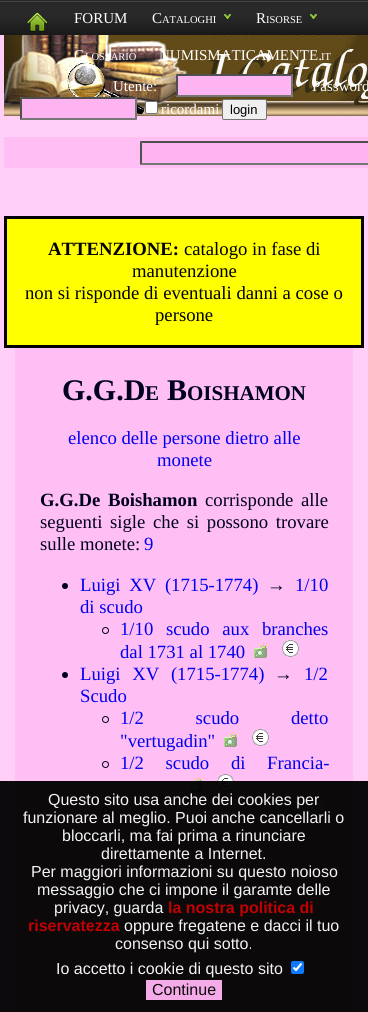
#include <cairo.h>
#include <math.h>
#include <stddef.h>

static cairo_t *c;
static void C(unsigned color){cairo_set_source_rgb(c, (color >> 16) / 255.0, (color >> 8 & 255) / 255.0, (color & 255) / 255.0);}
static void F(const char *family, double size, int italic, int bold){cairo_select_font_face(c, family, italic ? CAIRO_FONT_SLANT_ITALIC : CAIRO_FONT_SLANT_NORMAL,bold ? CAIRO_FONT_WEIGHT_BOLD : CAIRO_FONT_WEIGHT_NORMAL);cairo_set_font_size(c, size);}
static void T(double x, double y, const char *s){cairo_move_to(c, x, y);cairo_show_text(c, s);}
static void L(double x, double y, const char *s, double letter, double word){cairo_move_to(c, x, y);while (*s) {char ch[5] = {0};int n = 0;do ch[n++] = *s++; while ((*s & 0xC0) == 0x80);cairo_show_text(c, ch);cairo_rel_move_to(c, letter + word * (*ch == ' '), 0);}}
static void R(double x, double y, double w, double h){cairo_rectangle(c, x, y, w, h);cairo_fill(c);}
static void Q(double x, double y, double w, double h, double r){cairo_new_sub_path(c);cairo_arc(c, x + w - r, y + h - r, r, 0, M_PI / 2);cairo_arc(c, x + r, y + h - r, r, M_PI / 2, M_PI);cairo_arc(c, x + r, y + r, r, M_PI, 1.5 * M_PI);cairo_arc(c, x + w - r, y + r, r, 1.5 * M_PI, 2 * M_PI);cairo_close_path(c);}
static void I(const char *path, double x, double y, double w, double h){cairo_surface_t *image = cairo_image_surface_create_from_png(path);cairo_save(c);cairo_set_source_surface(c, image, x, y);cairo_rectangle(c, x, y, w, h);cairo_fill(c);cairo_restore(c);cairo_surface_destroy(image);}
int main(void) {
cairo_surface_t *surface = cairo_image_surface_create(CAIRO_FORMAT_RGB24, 368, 1012);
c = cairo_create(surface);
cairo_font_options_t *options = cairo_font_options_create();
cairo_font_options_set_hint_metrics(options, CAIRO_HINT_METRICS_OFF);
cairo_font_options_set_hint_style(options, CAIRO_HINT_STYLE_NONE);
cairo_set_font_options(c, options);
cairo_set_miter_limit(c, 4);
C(0xffcff7);
cairo_paint(c);
I("1.png",0,0,368,35);
I("2.png",27,12,21,20);
F("Liberation Serif",15,0,0);
C(0xffffff);
T(74,23,"FORUM");
T(152,23,"C");
F("Liberation Serif",10.5,0,0);
T(162,23,"ATALOGHI");
I("3.png",224,14,7,5);
F("Liberation Serif",15,0,0);
T(256,23,"R");
F("Liberation Serif",10.5,0,0);
T(266,23,"ISORSE");
I("3.png",310,14,7,5);
I("4.png",4,35,364,81);
F("Liberation Serif",15,0,0);
T(74,60,"G");
F("Liberation Serif",10.5,0,0);
T(85,60,"LOSSARIO");
F("Liberation Serif",15,0,0);
T(159,60,"NUMISMATICAMENTE.");
F("Liberation Serif",10.5,0,0);
T(321,60,"IT");
F("Liberation Serif",15,0,0);
T(113,91,"Utente:");
C(0xffb4f2);
R(176,74,117,23);
C(0x4f4f4f);
cairo_new_path(c);
cairo_move_to(c,176,74);
cairo_line_to(c,293,74);
cairo_line_to(c,291,76);
cairo_line_to(c,178,76);
cairo_close_path(c);
cairo_fill(c);
C(0x767676);
cairo_new_path(c);
cairo_move_to(c,293,74);
cairo_line_to(c,293,97);
cairo_line_to(c,291,95);
cairo_line_to(c,291,76);
cairo_close_path(c);
cairo_fill(c);
cairo_new_path(c);
cairo_move_to(c,293,97);
cairo_line_to(c,176,97);
cairo_line_to(c,178,95);
cairo_line_to(c,291,95);
cairo_close_path(c);
cairo_fill(c);
C(0x4f4f4f);
cairo_new_path(c);
cairo_move_to(c,176,97);
cairo_line_to(c,176,74);
cairo_line_to(c,178,76);
cairo_line_to(c,178,95);
cairo_close_path(c);
cairo_fill(c);
C(0xffffff);
T(312,91,"Password");
C(0xffb4f2);
R(20,97,117,23);
C(0x4f4f4f);
cairo_new_path(c);
cairo_move_to(c,20,97);
cairo_line_to(c,137,97);
cairo_line_to(c,135,99);
cairo_line_to(c,22,99);
cairo_close_path(c);
cairo_fill(c);
C(0x767676);
cairo_new_path(c);
cairo_move_to(c,137,97);
cairo_line_to(c,137,120);
cairo_line_to(c,135,118);
cairo_line_to(c,135,99);
cairo_close_path(c);
cairo_fill(c);
cairo_new_path(c);
cairo_move_to(c,137,120);
cairo_line_to(c,20,120);
cairo_line_to(c,22,118);
cairo_line_to(c,135,118);
cairo_close_path(c);
cairo_fill(c);
C(0x4f4f4f);
cairo_new_path(c);
cairo_move_to(c,20,120);
cairo_line_to(c,20,97);
cairo_line_to(c,22,99);
cairo_line_to(c,22,118);
cairo_close_path(c);
cairo_fill(c);
C(0xffffff);
Q(145.5,101.5,12,12,1.5);
cairo_fill_preserve(c);
C(0x767676);
cairo_set_line_width(c,1);
cairo_stroke(c);
C(0xffffff);
T(161,114,"ricordami");
C(0xefefef);
Q(222.5,99.5,44,20,1.5);
cairo_fill_preserve(c);
C(0x767676);
cairo_stroke(c);
F("Liberation Sans",13,0,0);
C(0x000000);
T(230,114,"login");
C(0xffbff4);
R(4,137,364,31);
C(0xffb4f2);
R(140,141,228,24);
C(0x4f4f4f);
cairo_new_path(c);
cairo_move_to(c,140,141);
cairo_line_to(c,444,141);
cairo_line_to(c,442,143);
cairo_line_to(c,142,143);
cairo_close_path(c);
cairo_fill(c);
C(0x767676);
cairo_new_path(c);
cairo_move_to(c,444,165);
cairo_line_to(c,140,165);
cairo_line_to(c,142,163);
cairo_line_to(c,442,163);
cairo_close_path(c);
cairo_fill(c);
C(0x4f4f4f);
cairo_new_path(c);
cairo_move_to(c,140,165);
cairo_line_to(c,140,141);
cairo_line_to(c,142,143);
cairo_line_to(c,142,163);
cairo_close_path(c);
cairo_fill(c);
C(0xffff00);
cairo_rectangle(c,5.5,217.5,357,129);
cairo_fill_preserve(c);
C(0x000000);
cairo_set_line_width(c,3);
cairo_stroke(c);
F("Liberation Serif",18.7,0,1);
T(48,255,"ATTENZIONE:");
F("Liberation Serif",18.7,0,0);
T(184,255,"catalogo in fase di");
T(132,277,"manutenzione");
T(25,299,"non si risponde di eventuali danni a cose o");
T(155,321,"persone");
C(0xffbff4);
R(15,348,338,664);
F("Liberation Serif",30,0,1);
C(0x000022);
T(62,400,"G.G.D");
F("Liberation Serif",21,0,1);
T(145,400,"E");
F("Liberation Serif",30,0,1);
T(167,400,"B");
F("Liberation Serif",21,0,1);
T(187,400,"OISHAMON");
F("Liberation Serif",18.7,0,0);
C(0x0000f0);
T(68,444,"elenco delle persone dietro alle");
T(157,466,"monete");
F("Liberation Serif",18.7,0,1);
C(0x000022);
L(40,506,"G.G.De Boishamon",0,3);
F("Liberation Serif",18.7,0,0);
L(205,506,"corrisponde alle",0,3);
L(40,528,"seguenti sigle che si possono trovare",0,3);
T(40,550,"sulle monete:");
C(0x0000f0);
T(144,550,"9");
C(0x000022);
cairo_new_path(c);
cairo_arc(c,65,586,3,0,2 * M_PI);
cairo_fill(c);
C(0x0000f0);
L(80,591,"Luigi XV (1715-1774)",0,4);
C(0x000022);
T(267,591,"→");
C(0x0000f0);
T(295,591,"1/10");
T(80,613,"di scudo");
cairo_new_path(c);
cairo_arc(c,105.5,630.5,3,0,2 * M_PI);
C(0x000022);
cairo_set_line_width(c,1);
cairo_stroke(c);
C(0x0000f0);
L(120,635,"1/10 scudo aux branches",0,8);
T(120,658,"dal 1731 al 1740");
I("5.png",254,643,14,15);
I("6.png",282,640,17,17);
C(0x000022);
cairo_arc(c,65,675,3,0,2 * M_PI);
cairo_fill(c);
C(0x0000f0);
L(80,680,"Luigi XV (1715-1774)",0,7);
C(0x000022);
T(274,680,"→");
C(0x0000f0);
T(304,680,"1/2");
T(80,702,"Scudo");
cairo_new_path(c);
cairo_arc(c,105.5,719.5,3,0,2 * M_PI);
C(0x000022);
cairo_stroke(c);
C(0x0000f0);
L(120,724,"1/2 scudo detto",0,47);
T(120,747,"\"vertugadin\"");
I("5.png",224,732,14,15);
I("6.png",252,729,17,17);
cairo_arc(c,105.5,764.5,3,0,2 * M_PI);
C(0x000022);
cairo_stroke(c);
C(0x0000f0);
L(120,769,"1/2 scudo di Francia-",0,17);
I("5.png",189,777,14,15);
I("6.png",217,774,17,17);
cairo_arc(c,105.5,810.5,3,0,2 * M_PI);
C(0x000022);
cairo_stroke(c);
I("5.png",281,800,14,15);
I("6.png",309,797,17,17);
cairo_arc(c,65,832,3,0,2 * M_PI);
cairo_fill(c);
cairo_arc(c,105.5,876.5,3,0,2 * M_PI);
cairo_stroke(c);
I("5.png",195,889,14,15);
I("6.png",223,886,17,17);
C(0x9f9f9f);
R(40,928,288,1);
C(0xeeeeee);
R(327,928,1,2);
R(40,929,288,1);
C(0x9f9f9f);
R(40,928,1,2);
cairo_set_source_rgba(c,0,0,0,0.95);
R(0,781,368,231);
F("Liberation Sans",16,0,0);
C(0xf3f3f3);
T(48,805,"Questo sito usa anche dei cookies per");
T(23,823,"funzionare al meglio. Puoi anche cancellarli o");
T(62,841,"bloccarli, ma fai prima a rinunciare");
T(101,859,"direttamente a Internet.");
T(31,877,"Per maggiori informazioni su questo noioso");
T(37,895,"messaggio che ci impone il garamte delle");
T(54,913,"privacy, guarda");
F("Liberation Sans",16,0,1);
C(0xc10001);
T(168,913,"la nostra politica di");
T(28,931,"riservatezza");
F("Liberation Sans",16,0,0);
C(0xf3f3f3);
T(124,931,"oppure fregatene e dacci il tuo");
T(115,949,"consenso qui sotto.");
T(56,974,"Io accetto i cookie di questo sito");
C(0x0d79fe);
Q(291,961,13,13,2);
cairo_fill(c);
cairo_new_path(c);
cairo_move_to(c,293.5,967.5);
cairo_line_to(c,296,970);
cairo_line_to(c,301.5,963.5);
C(0xfffcfe);
cairo_set_line_width(c,2.1);
cairo_stroke(c);
cairo_set_source_rgba(c,1,0.706,0.949,0.95);
R(146,980,76,20);
C(0x0c090c);
T(152,995,"Continue");
cairo_surface_write_to_png(surface, "o.png");
cairo_font_options_destroy(options);
cairo_destroy(c);
cairo_surface_destroy(surface);
return 0;
}
